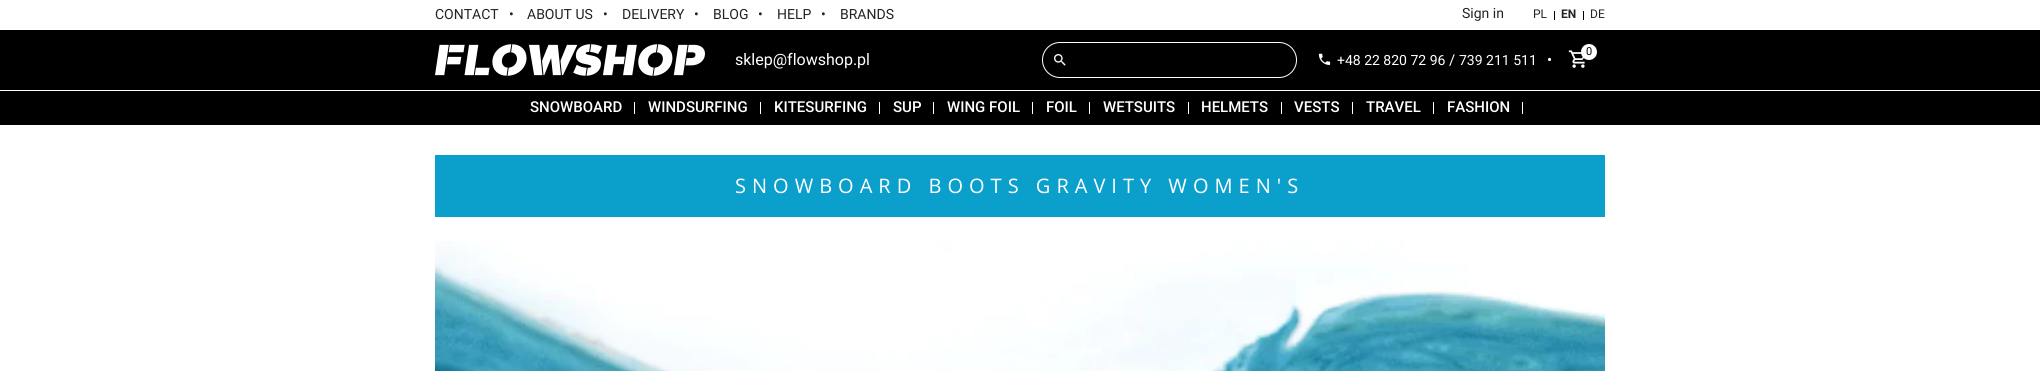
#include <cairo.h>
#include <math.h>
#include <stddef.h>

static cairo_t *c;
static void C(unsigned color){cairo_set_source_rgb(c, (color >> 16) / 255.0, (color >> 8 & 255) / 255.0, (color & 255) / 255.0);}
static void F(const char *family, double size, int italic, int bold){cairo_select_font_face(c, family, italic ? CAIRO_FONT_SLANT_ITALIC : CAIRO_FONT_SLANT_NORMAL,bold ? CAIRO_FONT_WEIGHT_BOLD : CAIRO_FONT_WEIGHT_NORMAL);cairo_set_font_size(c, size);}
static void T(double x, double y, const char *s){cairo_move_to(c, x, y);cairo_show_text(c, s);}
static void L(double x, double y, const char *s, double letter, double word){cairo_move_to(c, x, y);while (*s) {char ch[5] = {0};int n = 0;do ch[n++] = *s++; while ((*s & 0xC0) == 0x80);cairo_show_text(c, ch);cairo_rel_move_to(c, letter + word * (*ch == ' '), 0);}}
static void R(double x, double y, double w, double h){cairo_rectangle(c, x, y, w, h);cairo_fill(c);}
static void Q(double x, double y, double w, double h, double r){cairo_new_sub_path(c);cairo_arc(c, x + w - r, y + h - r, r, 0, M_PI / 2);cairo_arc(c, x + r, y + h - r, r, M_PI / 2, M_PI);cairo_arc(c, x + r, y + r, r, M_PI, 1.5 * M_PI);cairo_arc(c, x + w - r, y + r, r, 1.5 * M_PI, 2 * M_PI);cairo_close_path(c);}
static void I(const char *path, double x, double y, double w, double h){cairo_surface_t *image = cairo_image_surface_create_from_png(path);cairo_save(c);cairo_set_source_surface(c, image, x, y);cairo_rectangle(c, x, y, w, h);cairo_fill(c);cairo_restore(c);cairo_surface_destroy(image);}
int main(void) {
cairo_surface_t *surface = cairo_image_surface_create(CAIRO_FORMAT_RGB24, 2040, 371);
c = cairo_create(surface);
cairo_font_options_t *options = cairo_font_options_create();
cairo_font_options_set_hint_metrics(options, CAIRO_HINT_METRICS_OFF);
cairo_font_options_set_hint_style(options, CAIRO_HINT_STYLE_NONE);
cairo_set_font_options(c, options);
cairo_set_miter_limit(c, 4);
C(0xffffff);
cairo_paint(c);
F("Roboto",14,0,0);
C(0x232323);
T(435,19,"CONTACT");
T(509,19,"•");
T(527,19,"ABOUT US");
T(603,19,"•");
T(622,19,"DELIVERY");
T(694,19,"•");
T(713,19,"BLOG");
T(758,19,"•");
T(777,19,"HELP");
T(821,19,"•");
T(840,19,"BRANDS");
T(1462,18,"Sign in");
F("Roboto",12,0,0);
T(1533,18,"PL");
C(0x000000);
R(1554,11,1,9);
F("Roboto",12,0,1);
C(0x232323);
T(1561,18,"EN");
C(0x000000);
R(1583,11,1,9);
F("Roboto",12,0,0);
C(0x232323);
T(1590,18,"DE");
C(0x000000);
R(0,30,2040,60);
I("1.png",435,44,270,32);
F("Roboto",16,0,0);
C(0xffffff);
T(735,65,"sklep@flowshop.pl");
Q(1042.5,42.5,254,35,17.5);
cairo_set_line_width(c,1);
cairo_stroke(c);
I("2.png",1054,54,12,12);
I("3.png",1568,50,17,18);
cairo_arc(c,1589,52,8,0,2 * M_PI);
cairo_fill(c);
F("Roboto",11,0,0);
C(0x000000);
T(1586,55,"0");
I("4.png",1318,53,13,12);
F("Roboto",14,0,0);
C(0xffffff);
T(1337,65,"+48 22 820 72 96");
F("Roboto",15,0,0);
T(1449,65,"/");
F("Roboto",14,0,0);
T(1459,65,"739 211 511");
F("Roboto",15,0,0);
T(1547,65,"•");
C(0x000000);
R(0,91,2040,34);
F("Roboto Medium",15,0,0);
C(0xffffff);
T(530,112,"SNOWBOARD");
R(634,102,1,12);
T(648,112,"WINDSURFING");
R(760,102,1,12);
T(774,112,"KITESURFING");
R(879,102,1,12);
T(893,112,"SUP");
R(933,102,1,12);
T(947,112,"WING FOIL");
R(1032,102,1,12);
T(1046,112,"FOIL");
R(1089,102,1,12);
T(1103,112,"WETSUITS");
R(1188,102,1,12);
T(1201,112,"HELMETS");
R(1281,102,1,12);
T(1294,112,"VESTS");
R(1352,102,1,12);
T(1366,112,"TRAVEL");
R(1433,102,1,12);
T(1447,112,"FASHION");
R(1522,102,1,12);
C(0x0ba0cb);
R(435,155,1170,62);
F("Open Sans",20,0,0);
C(0xffffff);
L(735,193,"SNOWBOARD BOOTS GRAVITY WOMEN'S",6,0);
I("5.png",435,241,1170,130);
cairo_surface_write_to_png(surface, "o.png");
cairo_font_options_destroy(options);
cairo_destroy(c);
cairo_surface_destroy(surface);
return 0;
}
